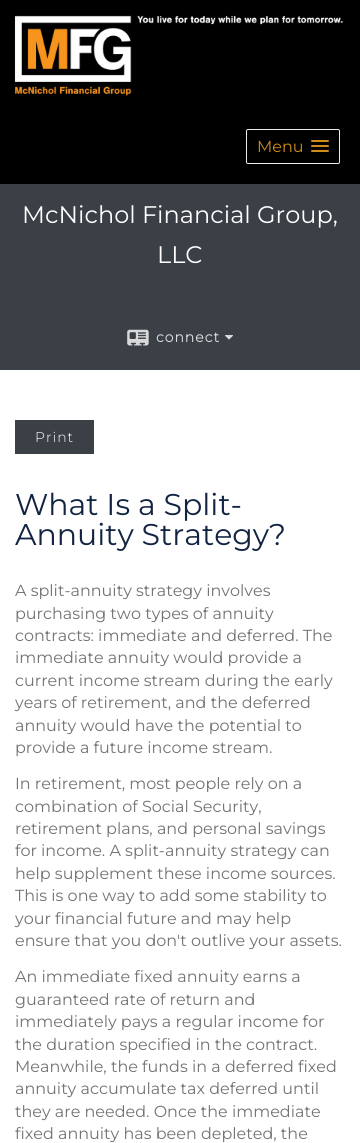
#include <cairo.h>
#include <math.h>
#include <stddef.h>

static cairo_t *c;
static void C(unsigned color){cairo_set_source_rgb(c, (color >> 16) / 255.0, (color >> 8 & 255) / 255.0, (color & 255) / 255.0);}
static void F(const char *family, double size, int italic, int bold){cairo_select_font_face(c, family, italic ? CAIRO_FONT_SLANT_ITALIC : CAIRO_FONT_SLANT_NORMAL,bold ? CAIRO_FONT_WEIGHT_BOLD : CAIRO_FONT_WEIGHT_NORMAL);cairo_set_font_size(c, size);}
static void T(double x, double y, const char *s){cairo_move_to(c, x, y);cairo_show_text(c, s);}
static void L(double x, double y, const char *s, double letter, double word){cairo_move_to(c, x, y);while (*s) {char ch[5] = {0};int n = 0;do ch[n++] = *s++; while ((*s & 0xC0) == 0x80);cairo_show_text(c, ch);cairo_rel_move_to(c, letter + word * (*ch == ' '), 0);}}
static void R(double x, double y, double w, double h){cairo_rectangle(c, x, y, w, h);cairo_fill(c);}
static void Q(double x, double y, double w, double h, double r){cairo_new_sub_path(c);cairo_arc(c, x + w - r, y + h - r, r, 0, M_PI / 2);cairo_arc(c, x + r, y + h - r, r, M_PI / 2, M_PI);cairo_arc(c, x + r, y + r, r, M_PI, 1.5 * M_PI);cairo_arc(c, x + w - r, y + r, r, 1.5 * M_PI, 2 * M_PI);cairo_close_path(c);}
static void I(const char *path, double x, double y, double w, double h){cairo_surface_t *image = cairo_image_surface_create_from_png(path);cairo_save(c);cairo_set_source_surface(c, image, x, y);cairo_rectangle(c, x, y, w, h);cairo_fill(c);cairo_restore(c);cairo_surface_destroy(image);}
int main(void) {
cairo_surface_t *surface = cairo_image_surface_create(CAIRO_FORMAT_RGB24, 360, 1143);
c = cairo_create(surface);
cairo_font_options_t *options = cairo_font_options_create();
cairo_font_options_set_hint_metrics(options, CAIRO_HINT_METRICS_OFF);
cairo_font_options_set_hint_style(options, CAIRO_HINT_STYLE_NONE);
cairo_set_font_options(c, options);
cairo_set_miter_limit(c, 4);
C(0x000000);
cairo_paint(c);
I("1.png",14,15,329,81);
Q(246.5,129.5,93,34,1.5);
C(0xececec);
cairo_set_line_width(c,1);
cairo_stroke(c);
F("Montserrat",16,0,0);
C(0xd08b1b);
T(257,152,"Menu");
Q(311,140,18,2,1);
cairo_fill(c);
Q(311,145,18,2,1);
cairo_fill(c);
Q(311,150,18,2,1);
cairo_fill(c);
C(0x3b4046);
R(0,184,360,186);
F("Montserrat",24,0,0);
C(0xffffff);
T(22,223,"McNichol Financial Group,");
T(157,263,"LLC");
I("2.png",127,329,22,17);
F("Montserrat",14,0,1);
C(0xd8d9da);
L(156,342,"connect",1,0);
I("3.png",225,335,8,5);
C(0xffffff);
R(0,370,360,773);
C(0x3b4046);
R(15,420,79,34);
F("Montserrat Light",14,0,0);
C(0xffffff);
L(35,442,"Print",1,0);
F("Montserrat",30,0,0);
C(0x122442);
T(15,515,"What Is a Split-");
T(15,545,"Annuity Strategy?");
F("Montserrat",16,0,0);
C(0x737373);
T(15,596,"A split-annuity strategy involves");
T(15,619,"purchasing two types of annuity");
T(15,641,"contracts: immediate and deferred. The");
T(15,663,"immediate annuity would provide a");
T(15,686,"current income stream during the early");
T(15,708,"years of retirement, and the deferred");
T(15,731,"annuity would have the potential to");
T(15,753,"provide a future income stream.");
T(15,789,"In retirement, most people rely on a");
T(15,812,"combination of Social Security,");
T(15,834,"retirement plans, and personal savings");
T(15,856,"for income. A split-annuity strategy can");
T(15,879,"help supplement these income sources.");
T(15,901,"This is one way to add some stability to");
T(15,924,"your financial future and may help");
T(15,946,"ensure that you don't outlive your assets.");
T(15,982,"An immediate fixed annuity earns a");
T(15,1005,"guaranteed rate of return and");
T(15,1027,"immediately pays a regular income for");
T(15,1050,"the duration specified in the contract.");
T(15,1072,"Meanwhile, the funds in a deferred fixed");
T(15,1094,"annuity accumulate tax deferred until");
T(15,1117,"they are needed. Once the immediate");
T(15,1139,"fixed annuity has been depleted, the");
cairo_surface_write_to_png(surface, "o.png");
cairo_font_options_destroy(options);
cairo_destroy(c);
cairo_surface_destroy(surface);
return 0;
}
